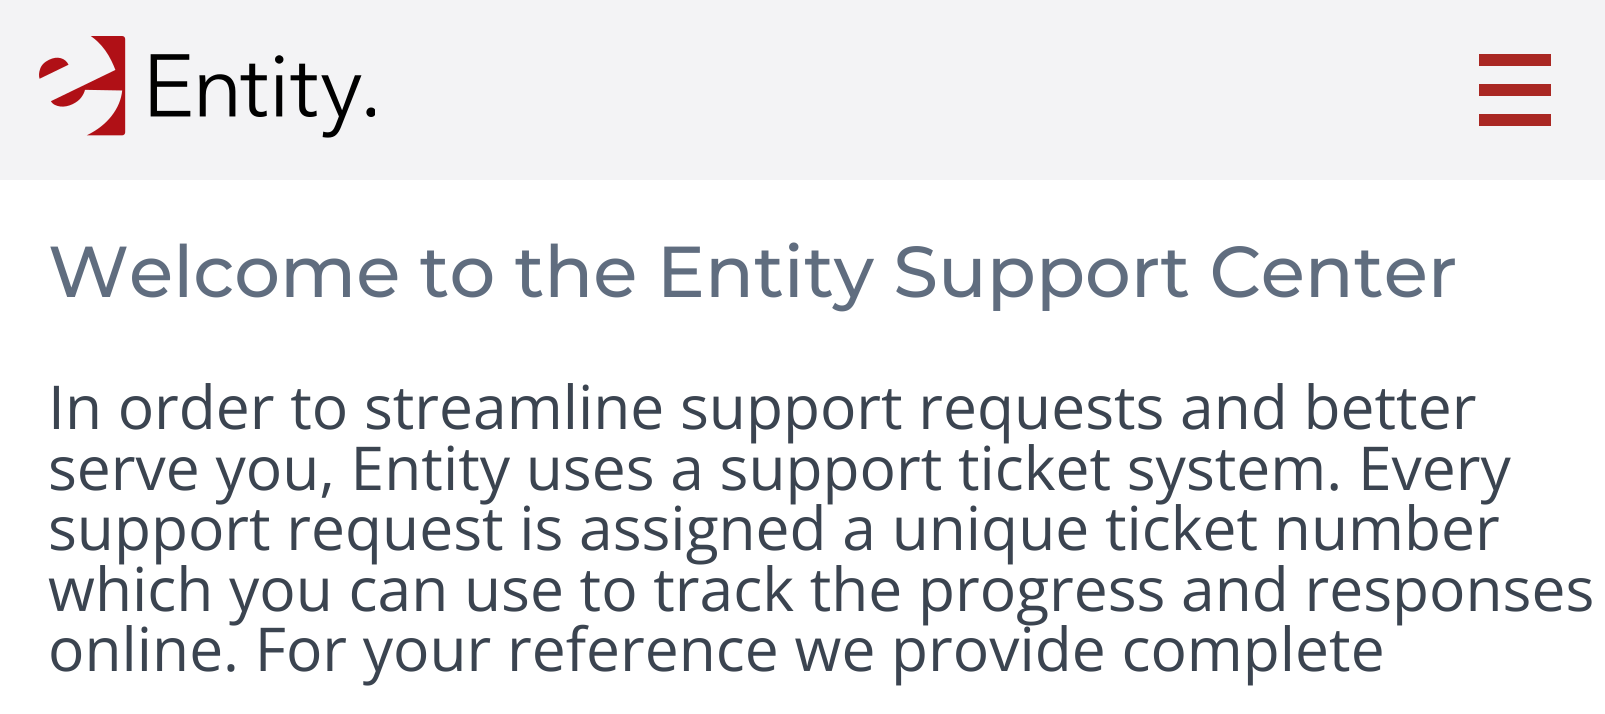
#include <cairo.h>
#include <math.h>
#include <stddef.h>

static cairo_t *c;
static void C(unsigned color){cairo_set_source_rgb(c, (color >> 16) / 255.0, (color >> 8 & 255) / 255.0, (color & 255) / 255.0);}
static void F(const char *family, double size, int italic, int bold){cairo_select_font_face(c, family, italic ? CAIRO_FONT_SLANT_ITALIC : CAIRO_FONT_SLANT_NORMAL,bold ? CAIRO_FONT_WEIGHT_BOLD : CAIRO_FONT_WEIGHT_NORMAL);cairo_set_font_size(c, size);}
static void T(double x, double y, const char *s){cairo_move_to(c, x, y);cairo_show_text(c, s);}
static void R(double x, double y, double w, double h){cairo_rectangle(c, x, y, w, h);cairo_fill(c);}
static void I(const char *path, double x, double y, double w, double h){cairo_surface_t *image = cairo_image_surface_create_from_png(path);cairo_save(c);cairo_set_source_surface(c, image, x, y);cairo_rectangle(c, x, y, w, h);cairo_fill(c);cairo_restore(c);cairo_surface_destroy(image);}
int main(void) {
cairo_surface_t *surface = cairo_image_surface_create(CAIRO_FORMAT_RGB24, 1605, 714);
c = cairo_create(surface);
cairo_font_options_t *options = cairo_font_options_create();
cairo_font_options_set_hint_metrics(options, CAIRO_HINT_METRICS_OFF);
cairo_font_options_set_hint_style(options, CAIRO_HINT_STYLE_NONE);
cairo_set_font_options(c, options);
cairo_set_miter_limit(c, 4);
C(0xffffff);
cairo_paint(c);
C(0xf3f3f5);
R(0,0,1605,180);
I("1.png",39,36,336,102);
C(0xa92723);
R(1479,84,72,12);
R(1479,54,72,12);
R(1479,114,72,12);
F("Montserrat Medium",72,0,0);
C(0x606d7f);
T(48,297,"Welcome to the Entity Support Center");
F("Open Sans",60.5,0,0);
C(0x3b4450);
T(48,429,"In order to streamline support requests and better");
T(48,490,"serve you, Entity uses a support ticket system. Every");
T(48,550,"support request is assigned a unique ticket number");
T(48,611,"which you can use to track the progress and responses");
T(48,671,"online. For your reference we provide complete");
cairo_surface_write_to_png(surface, "o.png");
cairo_font_options_destroy(options);
cairo_destroy(c);
cairo_surface_destroy(surface);
return 0;
}
